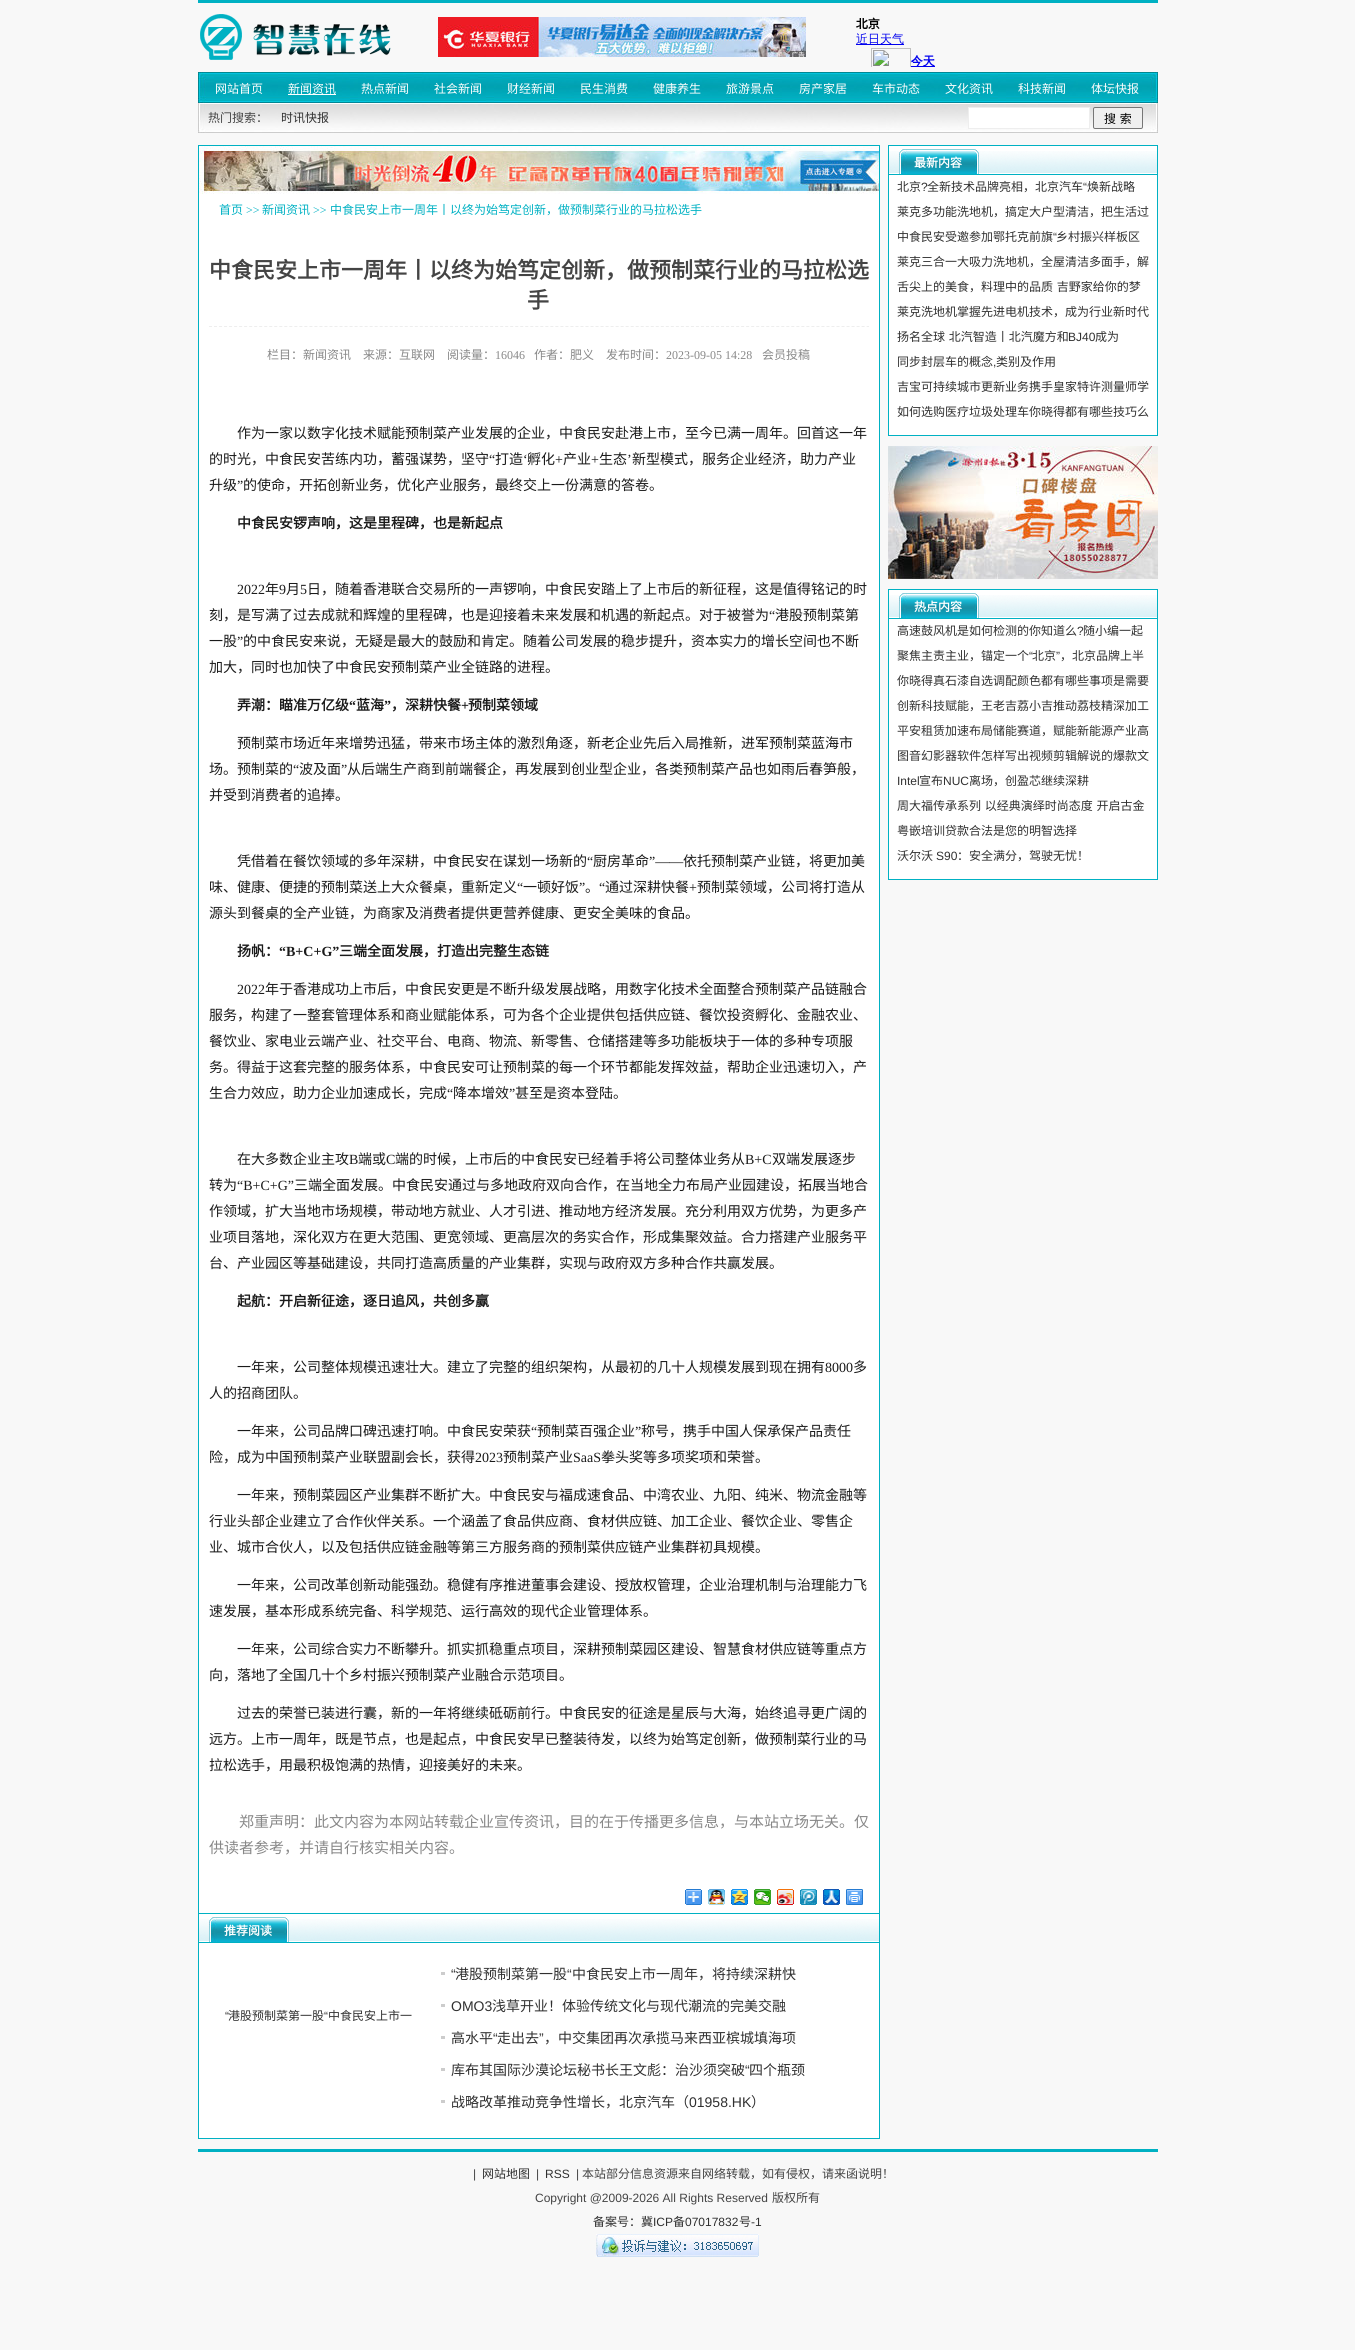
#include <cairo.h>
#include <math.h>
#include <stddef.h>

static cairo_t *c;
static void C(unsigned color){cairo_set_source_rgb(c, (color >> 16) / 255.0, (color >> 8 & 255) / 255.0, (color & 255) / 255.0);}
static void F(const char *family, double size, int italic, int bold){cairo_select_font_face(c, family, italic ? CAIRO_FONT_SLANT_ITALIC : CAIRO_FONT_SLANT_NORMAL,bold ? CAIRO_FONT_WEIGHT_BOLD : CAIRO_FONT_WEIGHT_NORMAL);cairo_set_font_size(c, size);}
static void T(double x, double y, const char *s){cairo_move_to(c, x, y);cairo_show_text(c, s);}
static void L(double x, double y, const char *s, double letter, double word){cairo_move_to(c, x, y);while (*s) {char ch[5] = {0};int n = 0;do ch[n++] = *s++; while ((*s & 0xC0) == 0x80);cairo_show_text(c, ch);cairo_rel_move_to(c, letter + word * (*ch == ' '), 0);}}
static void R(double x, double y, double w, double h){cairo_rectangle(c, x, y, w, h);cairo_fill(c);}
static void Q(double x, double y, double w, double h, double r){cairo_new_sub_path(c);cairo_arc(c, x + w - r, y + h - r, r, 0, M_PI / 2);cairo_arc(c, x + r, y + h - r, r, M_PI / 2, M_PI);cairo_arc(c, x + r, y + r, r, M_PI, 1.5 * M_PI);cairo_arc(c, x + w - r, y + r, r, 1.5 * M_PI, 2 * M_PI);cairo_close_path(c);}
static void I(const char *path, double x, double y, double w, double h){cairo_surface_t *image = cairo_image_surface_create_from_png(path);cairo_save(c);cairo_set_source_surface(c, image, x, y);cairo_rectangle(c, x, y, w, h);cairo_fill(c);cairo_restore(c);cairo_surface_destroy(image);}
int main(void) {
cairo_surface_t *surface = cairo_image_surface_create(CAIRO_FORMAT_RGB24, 1355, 2350);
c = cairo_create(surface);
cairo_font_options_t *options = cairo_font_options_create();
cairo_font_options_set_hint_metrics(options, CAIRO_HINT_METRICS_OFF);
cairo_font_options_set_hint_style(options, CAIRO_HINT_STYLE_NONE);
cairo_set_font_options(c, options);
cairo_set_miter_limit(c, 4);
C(0xf8f8f8);
cairo_paint(c);
C(0x00b1c3);
R(198,0,960,3);
I("1.png",200,14,191,46);
I("2.png",438,17,368,40);
I("3.png",856,17,79,50);
I("4.png",198,72,960,61);
F("Noto Sans CJK SC",12,0,0);
C(0xffffff);
T(215,93,"网站首页");
T(288,93,"新闻资讯");
R(288,94,48,1);
T(361,93,"热点新闻");
T(434,93,"社会新闻");
T(507,93,"财经新闻");
T(580,93,"民生消费");
T(653,93,"健康养生");
T(726,93,"旅游景点");
T(799,93,"房产家居");
T(872,93,"车市动态");
T(945,93,"文化资讯");
T(1018,93,"科技新闻");
T(1091,93,"体坛快报");
C(0x444444);
T(208,122,"热门搜索：");
C(0x303030);
T(281,122,"时讯快报");
C(0xffffff);
cairo_rectangle(c,968.5,107.5,121,21);
cairo_fill_preserve(c);
C(0xeeeeee);
cairo_set_line_width(c,1);
cairo_stroke(c);
C(0xefefef);
Q(1093.5,107.5,49,21,1.5);
cairo_fill_preserve(c);
C(0x767676);
cairo_stroke(c);
C(0x000000);
L(1104,123,"搜 索",0,1);
C(0xffffff);
R(199,194,680,1944);
I("5.png",199,146,680,48);
cairo_rectangle(c,198.5,145.5,681,1993);
C(0x00b1c3);
cairo_stroke(c);
T(219,214,"首页");
F("Liberation Serif",12,0,0);
T(246,214,">>");
F("Noto Sans CJK SC",12,0,0);
T(262,214,"新闻资讯");
F("Liberation Serif",12,0,0);
T(313,214,">>");
F("Noto Sans CJK SC",12,0,0);
T(330,214,"中食民安上市一周年丨以终为始笃定创新，做预制菜行业的马拉松选手");
cairo_new_path(c);
cairo_move_to(c,209,326.5);
cairo_line_to(c,869,326.5);
C(0xeeeeee);
cairo_set_dash(c,(double[]){3,2.02},2,0);
cairo_stroke(c);
F("Noto Sans CJK SC",22,0,1);
C(0x444444);
T(209,278,"中食民安上市一周年丨以终为始笃定创新，做预制菜行业的马拉松选");
T(527,308,"手");
F("Noto Sans CJK SC",12,0,0);
C(0x888888);
T(267,359,"栏目：新闻资讯");
T(363,359,"来源：互联网");
T(447,359,"阅读量：");
F("Liberation Serif",12,0,0);
T(495,359,"16046");
F("Noto Sans CJK SC",12,0,0);
T(534,359,"作者：肥义");
T(606,359,"发布时间：");
F("Liberation Serif",12,0,0);
T(666,359,"2023-09-05 14:28");
F("Noto Sans CJK SC",12,0,0);
T(762,359,"会员投稿");
F("Noto Sans CJK SC",14,0,0);
C(0x1a1a1a);
T(237,438,"作为一家以数字化技术赋能预制菜产业发展的企业，中食民安赴港上市，至今已满一周年。回首这一年");
T(209,464,"的时光，中食民安苦练内功，蓄强谋势，坚守");
F("Liberation Serif",14,0,0);
T(489,464,"“");
F("Noto Sans CJK SC",14,0,0);
T(495,464,"打造");
F("Liberation Serif",14,0,0);
T(523,464,"‘");
F("Noto Sans CJK SC",14,0,0);
T(527,464,"孵化");
F("Liberation Serif",14,0,0);
T(555,464,"+");
F("Noto Sans CJK SC",14,0,0);
T(563,464,"产业");
F("Liberation Serif",14,0,0);
T(591,464,"+");
F("Noto Sans CJK SC",14,0,0);
T(599,464,"生态");
F("Liberation Serif",14,0,0);
T(627,464,"’");
F("Noto Sans CJK SC",14,0,0);
T(632,464,"新型模式，服务企业经济，助力产业");
T(209,490,"升级");
F("Liberation Serif",14,0,0);
T(237,490,"”");
F("Noto Sans CJK SC",14,0,0);
T(243,490,"的使命，开拓创新业务，优化产业服务，最终交上一份满意的答卷。");
F("Noto Sans CJK SC",14,0,1);
T(237,528,"中食民安锣声响，这是里程碑，也是新起点");
F("Liberation Serif",14,0,0);
T(237,594,"2022");
F("Noto Sans CJK SC",14,0,0);
T(265,594,"年");
F("Liberation Serif",14,0,0);
T(279,594,"9");
F("Noto Sans CJK SC",14,0,0);
T(286,594,"月");
F("Liberation Serif",14,0,0);
T(300,594,"5");
F("Noto Sans CJK SC",14,0,0);
T(307,594,"日，随着香港联合交易所的一声锣响，中食民安踏上了上市后的新征程，这是值得铭记的时");
T(209,620,"刻，是写满了过去成就和辉煌的里程碑，也是迎接着未来发展和机遇的新起点。对于被誉为");
F("Liberation Serif",14,0,0);
T(769,620,"“");
F("Noto Sans CJK SC",14,0,0);
T(775,620,"港股预制菜第");
T(209,646,"一股");
F("Liberation Serif",14,0,0);
T(237,646,"”");
F("Noto Sans CJK SC",14,0,0);
T(243,646,"的中食民安来说，无疑是最大的鼓励和肯定。随着公司发展的稳步提升，资本实力的增长空间也不断");
T(209,672,"加大，同时也加快了中食民安预制菜产业全链路的进程。");
F("Noto Sans CJK SC",14,0,1);
T(237,710,"弄潮：瞄准万亿级");
F("Liberation Serif",14,0,1);
T(349,710,"“");
F("Noto Sans CJK SC",14,0,1);
T(356,710,"蓝海");
F("Liberation Serif",14,0,1);
T(384,710,"”");
F("Noto Sans CJK SC",14,0,1);
T(391,710,"，深耕快餐");
F("Liberation Serif",14,0,1);
T(461,710,"+");
F("Noto Sans CJK SC",14,0,1);
T(468,710,"预制菜领域");
F("Noto Sans CJK SC",14,0,0);
T(237,748,"预制菜市场近年来增势迅猛，带来市场主体的激烈角逐，新老企业先后入局推新，进军预制菜蓝海市");
T(209,774,"场。预制菜的");
F("Liberation Serif",14,0,0);
T(293,774,"“");
F("Noto Sans CJK SC",14,0,0);
T(299,774,"波及面");
F("Liberation Serif",14,0,0);
T(341,774,"”");
F("Noto Sans CJK SC",14,0,0);
T(347,774,"从后端生产商到前端餐企，再发展到创业型企业，各类预制菜产品也如雨后春笋般，");
T(209,800,"并受到消费者的追捧。");
T(237,866,"凭借着在餐饮领域的多年深耕，中食民安在谋划一场新的");
F("Liberation Serif",14,0,0);
T(587,866,"“");
F("Noto Sans CJK SC",14,0,0);
T(593,866,"厨房革命");
F("Liberation Serif",14,0,0);
T(649,866,"”——");
F("Noto Sans CJK SC",14,0,0);
T(683,866,"依托预制菜产业链，将更加美");
T(209,892,"味、健康、便捷的预制菜送上大众餐桌，重新定义");
F("Liberation Serif",14,0,0);
T(517,892,"“");
F("Noto Sans CJK SC",14,0,0);
T(523,892,"一顿好饭");
F("Liberation Serif",14,0,0);
T(579,892,"”");
F("Noto Sans CJK SC",14,0,0);
T(585,892,"。");
F("Liberation Serif",14,0,0);
T(599,892,"“");
F("Noto Sans CJK SC",14,0,0);
T(605,892,"通过深耕快餐");
F("Liberation Serif",14,0,0);
T(689,892,"+");
F("Noto Sans CJK SC",14,0,0);
T(697,892,"预制菜领域，公司将打造从");
T(209,918,"源头到餐桌的全产业链，为商家及消费者提供更营养健康、更安全美味的食品。");
F("Noto Sans CJK SC",14,0,1);
T(237,956,"扬帆：");
F("Liberation Serif",14,0,1);
T(279,956,"“B+C+G”");
F("Noto Sans CJK SC",14,0,1);
T(339,956,"三端全面发展，打造出完整生态链");
F("Liberation Serif",14,0,0);
T(237,994,"2022");
F("Noto Sans CJK SC",14,0,0);
T(265,994,"年于香港成功上市后，中食民安更是不断升级发展战略，用数字化技术全面整合预制菜产品链融合");
T(209,1020,"服务，构建了一整套管理体系和商业赋能体系，可为各个企业提供包括供应链、餐饮投资孵化、金融农业、");
T(209,1046,"餐饮业、家电业云端产业、社交平台、电商、物流、新零售、仓储搭建等多功能板块于一体的多种专项服");
T(209,1072,"务。得益于这套完整的服务体系，中食民安可让预制菜的每一个环节都能发挥效益，帮助企业迅速切入，产");
T(209,1098,"生合力效应，助力企业加速成长，完成");
F("Liberation Serif",14,0,0);
T(447,1098,"“");
F("Noto Sans CJK SC",14,0,0);
T(453,1098,"降本增效");
F("Liberation Serif",14,0,0);
T(509,1098,"”");
F("Noto Sans CJK SC",14,0,0);
T(515,1098,"甚至是资本登陆。");
T(237,1164,"在大多数企业主攻");
F("Liberation Serif",14,0,0);
T(349,1164,"B");
F("Noto Sans CJK SC",14,0,0);
T(358,1164,"端或");
F("Liberation Serif",14,0,0);
T(386,1164,"C");
F("Noto Sans CJK SC",14,0,0);
T(395,1164,"端的时候，上市后的中食民安已经着手将公司整体业务从");
F("Liberation Serif",14,0,0);
T(745,1164,"B+C");
F("Noto Sans CJK SC",14,0,0);
T(772,1164,"双端发展逐步");
T(209,1190,"转为");
F("Liberation Serif",14,0,0);
T(237,1190,"“B+C+G”");
F("Noto Sans CJK SC",14,0,0);
T(294,1190,"三端全面发展。中食民安通过与多地政府双向合作，在当地全力布局产业园建设，拓展当地合");
T(209,1216,"作领域，扩大当地市场规模，带动地方就业、人才引进、推动地方经济发展。充分利用双方优势，为更多产");
T(209,1242,"业项目落地，深化双方在更大范围、更宽领域、更高层次的务实合作，形成集聚效益。合力搭建产业服务平");
T(209,1268,"台、产业园区等基础建设，共同打造高质量的产业集群，实现与政府双方多种合作共赢发展。");
F("Noto Sans CJK SC",14,0,1);
T(237,1306,"起航：开启新征途，逐日追风，共创多赢");
F("Noto Sans CJK SC",14,0,0);
T(237,1372,"一年来，公司整体规模迅速壮大。建立了完整的组织架构，从最初的几十人规模发展到现在拥有");
F("Liberation Serif",14,0,0);
T(825,1372,"8000");
F("Noto Sans CJK SC",14,0,0);
T(853,1372,"多");
T(209,1398,"人的招商团队。");
T(237,1436,"一年来，公司品牌口碑迅速打响。中食民安荣获");
F("Liberation Serif",14,0,0);
T(531,1436,"“");
F("Noto Sans CJK SC",14,0,0);
T(537,1436,"预制菜百强企业");
F("Liberation Serif",14,0,0);
T(635,1436,"”");
F("Noto Sans CJK SC",14,0,0);
T(641,1436,"称号，携手中国人保承保产品责任");
T(209,1462,"险，成为中国预制菜产业联盟副会长，获得");
F("Liberation Serif",14,0,0);
T(475,1462,"2023");
F("Noto Sans CJK SC",14,0,0);
T(503,1462,"预制菜产业");
F("Liberation Serif",14,0,0);
T(573,1462,"SaaS");
F("Noto Sans CJK SC",14,0,0);
T(601,1462,"拳头奖等多项奖项和荣誉。");
T(237,1500,"一年来，预制菜园区产业集群不断扩大。中食民安与福成速食品、中湾农业、九阳、纯米、物流金融等");
T(209,1526,"行业头部企业建立了合作伙伴关系。一个涵盖了食品供应商、食材供应链、加工企业、餐饮企业、零售企");
T(209,1552,"业、城市合伙人，以及包括供应链金融等第三方服务商的预制菜供应链产业集群初具规模。");
T(237,1590,"一年来，公司改革创新动能强劲。稳健有序推进董事会建设、授放权管理，企业治理机制与治理能力飞");
T(209,1616,"速发展，基本形成系统完备、科学规范、运行高效的现代企业管理体系。");
T(237,1654,"一年来，公司综合实力不断攀升。抓实抓稳重点项目，深耕预制菜园区建设、智慧食材供应链等重点方");
T(209,1680,"向，落地了全国几十个乡村振兴预制菜产业融合示范项目。");
T(237,1718,"过去的荣誉已装进行囊，新的一年将继续砥砺前行。中食民安的征途是星辰与大海，始终追寻更广阔的");
T(209,1744,"远方。上市一周年，既是节点，也是起点，中食民安早已整装待发，以终为始笃定创新，做预制菜行业的马");
T(209,1770,"拉松选手，用最积极饱满的热情，迎接美好的未来。");
F("Noto Sans CJK SC",15,0,0);
C(0x888888);
T(239,1827,"郑重声明：此文内容为本网站转载企业宣传资讯，目的在于传播更多信息，与本站立场无关。仅");
T(209,1853,"供读者参考，并请自行核实相关内容。");
I("6.png",685,1889,17,16);
I("7.png",708,1889,17,16);
I("8.png",731,1889,17,16);
I("9.png",754,1889,17,16);
I("10.png",777,1889,17,16);
I("11.png",800,1889,17,16);
I("12.png",823,1889,17,16);
I("13.png",846,1889,17,16);
C(0x00b1c3);
R(199,1913,680,1);
I("14.png",199,1919,680,22);
R(199,1942,680,1);
I("15.png",209,1917,80,25);
F("Noto Sans CJK SC",12,0,1);
C(0xffffff);
T(224,1935,"推荐阅读");
F("Liberation Sans",12,0,0);
C(0x303030);
T(225,2020,"“");
F("Noto Sans CJK SC",12,0,0);
T(228,2020,"港股预制菜第一股");
F("Liberation Sans",12,0,0);
T(324,2020,"“");
F("Noto Sans CJK SC",12,0,0);
T(328,2020,"中食民安上市一");
C(0xcccccc);
R(441,1972,4,3);
F("Liberation Sans",14,0,0);
C(0x303030);
T(451,1979,"“");
F("Noto Sans CJK SC",14,0,0);
T(455,1979,"港股预制菜第一股");
F("Liberation Sans",14,0,0);
T(567,1979,"“");
F("Noto Sans CJK SC",14,0,0);
T(572,1979,"中食民安上市一周年，将持续深耕快");
C(0xcccccc);
R(441,2004,4,3);
F("Liberation Sans",14,0,0);
C(0x303030);
T(451,2011,"OMO3");
F("Noto Sans CJK SC",14,0,0);
T(492,2011,"浅草开业！体验传统文化与现代潮流的完美交融");
C(0xcccccc);
R(441,2036,4,3);
C(0x303030);
T(451,2043,"高水平");
F("Liberation Sans",14,0,0);
T(493,2043,"“");
F("Noto Sans CJK SC",14,0,0);
T(497,2043,"走出去");
F("Liberation Sans",14,0,0);
T(539,2043,"”");
F("Noto Sans CJK SC",14,0,0);
T(544,2043,"，中交集团再次承揽马来西亚槟城填海项");
C(0xcccccc);
R(441,2068,4,3);
C(0x303030);
T(451,2075,"库布其国际沙漠论坛秘书长王文彪：治沙须突破");
F("Liberation Sans",14,0,0);
T(745,2075,"“");
F("Noto Sans CJK SC",14,0,0);
T(749,2075,"四个瓶颈");
C(0xcccccc);
R(441,2100,4,3);
C(0x303030);
T(451,2107,"战略改革推动竞争性增长，北京汽车（");
F("Liberation Sans",14,0,0);
T(689,2107,"01958.HK");
F("Noto Sans CJK SC",14,0,0);
T(751,2107,"）");
C(0xffffff);
cairo_rectangle(c,888.5,145.5,269,290);
cairo_fill_preserve(c);
C(0x00b1c3);
cairo_set_dash(c,NULL,0,0);
cairo_stroke(c);
I("16.png",889,151,268,22);
R(889,174,268,1);
I("15.png",899,149,80,25);
F("Noto Sans CJK SC",12,0,1);
C(0xffffff);
T(914,167,"最新内容");
F("Noto Sans CJK SC",12,0,0);
C(0x303030);
T(897,191,"北京");
F("Liberation Sans",12,0,0);
T(921,191,"?");
F("Noto Sans CJK SC",12,0,0);
T(927,191,"全新技术品牌亮相，北京汽车");
F("Liberation Sans",12,0,0);
T(1083,191,"“");
F("Noto Sans CJK SC",12,0,0);
T(1087,191,"焕新战略");
T(897,216,"莱克多功能洗地机，搞定大户型清洁，把生活过");
T(897,241,"中食民安受邀参加鄂托克前旗");
F("Liberation Sans",12,0,0);
T(1053,241,"“");
F("Noto Sans CJK SC",12,0,0);
T(1056,241,"乡村振兴样板区");
T(897,266,"莱克三合一大吸力洗地机，全屋清洁多面手，解");
L(897,291,"舌尖上的美食，料理中的品质 吉野家给你的梦",0,1);
T(897,316,"莱克洗地机掌握先进电机技术，成为行业新时代");
L(897,341,"扬名全球 北汽智造丨北汽魔方和",0,1);
F("Liberation Sans",12,0,0);
T(1068,341,"BJ40");
F("Noto Sans CJK SC",12,0,0);
T(1095,341,"成为");
T(897,366,"同步封层车的概念");
F("Liberation Sans",12,0,0);
T(993,366,",");
F("Noto Sans CJK SC",12,0,0);
T(996,366,"类别及作用");
T(897,391,"吉宝可持续城市更新业务携手皇家特许测量师学");
T(897,416,"如何选购医疗垃圾处理车你晓得都有哪些技巧么");
I("17.png",888,446,270,133);
C(0xffffff);
cairo_rectangle(c,888.5,589.5,269,290);
cairo_fill_preserve(c);
C(0x00b1c3);
cairo_stroke(c);
I("16.png",889,595,268,22);
R(889,618,268,1);
I("15.png",899,593,80,25);
F("Noto Sans CJK SC",12,0,1);
C(0xffffff);
T(914,611,"热点内容");
F("Noto Sans CJK SC",12,0,0);
C(0x303030);
T(897,635,"高速鼓风机是如何检测的你知道么");
F("Liberation Sans",12,0,0);
T(1077,635,"?");
F("Noto Sans CJK SC",12,0,0);
T(1083,635,"随小编一起");
T(897,660,"聚焦主责主业，锚定一个");
F("Liberation Sans",12,0,0);
T(1029,660,"“");
F("Noto Sans CJK SC",12,0,0);
T(1032,660,"北京");
F("Liberation Sans",12,0,0);
T(1056,660,"”");
F("Noto Sans CJK SC",12,0,0);
T(1060,660,"，北京品牌上半");
T(897,685,"你晓得真石漆自选调配颜色都有哪些事项是需要");
T(897,710,"创新科技赋能，王老吉荔小吉推动荔枝精深加工");
T(897,735,"平安租赁加速布局储能赛道，赋能新能源产业高");
T(897,760,"图音幻影器软件怎样写出视频剪辑解说的爆款文");
F("Liberation Sans",12,0,0);
T(897,785,"Intel");
F("Noto Sans CJK SC",12,0,0);
T(919,785,"宣布");
F("Liberation Sans",12,0,0);
T(943,785,"NUC");
F("Noto Sans CJK SC",12,0,0);
T(969,785,"离场，创盈芯继续深耕");
L(897,810,"周大福传承系列 以经典演绎时尚态度 开启古金",0,1);
T(897,835,"粤嵌培训贷款合法是您的明智选择");
T(897,860,"沃尔沃");
F("Liberation Sans",12,0,0);
T(936,860,"S90");
F("Noto Sans CJK SC",12,0,0);
T(957,860,"：安全满分，驾驶无忧！");
C(0x00b1c3);
R(198,2149,960,3);
F("Liberation Sans",12,0,0);
C(0x444444);
T(473,2178,"|");
F("Noto Sans CJK SC",12,0,0);
C(0x303030);
T(482,2178,"网站地图");
F("Liberation Sans",12,0,0);
C(0x444444);
T(536,2178,"|");
C(0x303030);
T(545,2178,"RSS");
C(0x444444);
T(576,2178,"|");
F("Noto Sans CJK SC",12,0,0);
T(582,2178,"本站部分信息资源来自网络转载，如有侵权，请来函说明！");
F("Liberation Sans",12,0,0);
T(535,2202,"Copyright @2009-2026 All Rights Reserved");
F("Noto Sans CJK SC",12,0,0);
T(772,2202,"版权所有");
C(0x303030);
T(593,2226,"备案号：冀");
F("Liberation Sans",12,0,0);
T(653,2226,"ICP");
F("Noto Sans CJK SC",12,0,0);
T(673,2226,"备");
F("Liberation Sans",12,0,0);
T(685,2226,"07017832");
F("Noto Sans CJK SC",12,0,0);
T(739,2226,"号");
F("Liberation Sans",12,0,0);
T(751,2226,"-1");
I("18.png",596,2234,163,23);
cairo_surface_write_to_png(surface, "o.png");
cairo_font_options_destroy(options);
cairo_destroy(c);
cairo_surface_destroy(surface);
return 0;
}
